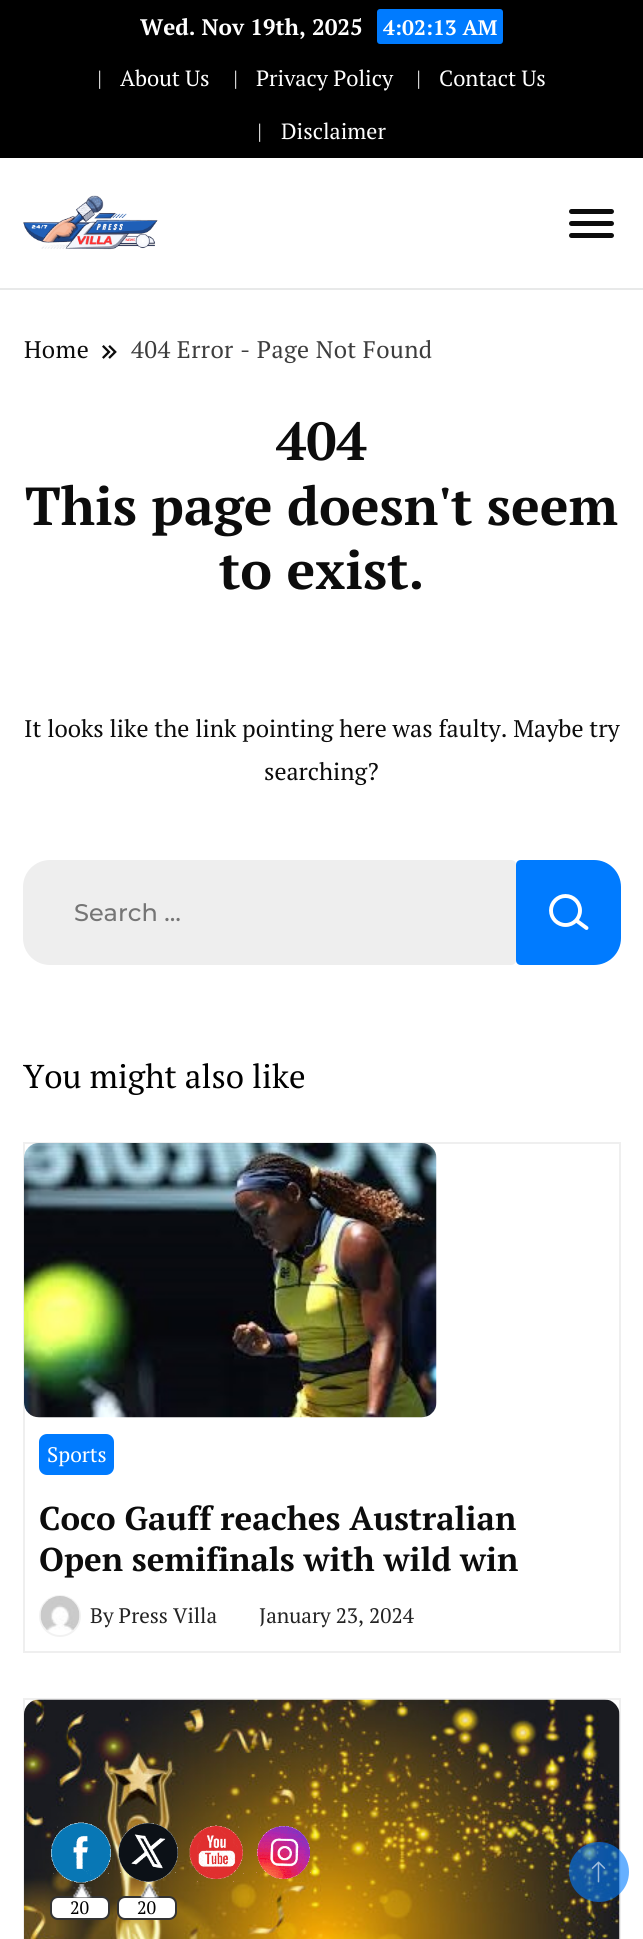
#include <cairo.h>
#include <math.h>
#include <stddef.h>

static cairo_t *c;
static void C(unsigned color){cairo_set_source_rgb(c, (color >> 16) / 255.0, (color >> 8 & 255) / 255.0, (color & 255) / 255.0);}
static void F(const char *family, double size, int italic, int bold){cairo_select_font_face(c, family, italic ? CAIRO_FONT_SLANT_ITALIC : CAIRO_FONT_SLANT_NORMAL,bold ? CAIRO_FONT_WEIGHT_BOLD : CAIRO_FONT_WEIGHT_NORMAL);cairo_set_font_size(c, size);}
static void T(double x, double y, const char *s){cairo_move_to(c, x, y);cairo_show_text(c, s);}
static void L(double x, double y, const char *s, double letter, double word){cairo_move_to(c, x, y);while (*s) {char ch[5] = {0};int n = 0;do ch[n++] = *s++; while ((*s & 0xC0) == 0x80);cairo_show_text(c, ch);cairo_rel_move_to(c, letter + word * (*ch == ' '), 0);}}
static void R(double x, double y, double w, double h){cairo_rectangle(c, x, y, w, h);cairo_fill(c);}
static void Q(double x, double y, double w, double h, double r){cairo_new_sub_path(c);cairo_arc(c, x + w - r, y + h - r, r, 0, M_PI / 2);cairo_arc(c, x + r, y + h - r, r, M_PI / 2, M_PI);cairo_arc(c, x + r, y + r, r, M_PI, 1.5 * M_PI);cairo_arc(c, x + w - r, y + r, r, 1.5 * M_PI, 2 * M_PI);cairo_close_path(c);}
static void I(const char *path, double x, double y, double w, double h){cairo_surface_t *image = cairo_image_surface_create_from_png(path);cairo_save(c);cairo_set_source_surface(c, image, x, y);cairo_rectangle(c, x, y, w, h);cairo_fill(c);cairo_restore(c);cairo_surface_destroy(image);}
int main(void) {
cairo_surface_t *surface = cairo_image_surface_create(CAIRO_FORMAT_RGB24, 643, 1939);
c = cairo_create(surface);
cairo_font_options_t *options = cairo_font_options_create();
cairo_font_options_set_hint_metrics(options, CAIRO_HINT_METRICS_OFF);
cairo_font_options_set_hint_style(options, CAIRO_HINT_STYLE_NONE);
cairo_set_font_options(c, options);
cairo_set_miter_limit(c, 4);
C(0xffffff);
cairo_paint(c);
C(0xe8e9e9);
R(0,288,643,2);
C(0x000000);
R(0,0,643,158);
F("PT Serif",22.5,0,1);
C(0xffffff);
T(140,35,"Wed. Nov 19th, 2025");
C(0x007bff);
Q(377,9,126,35,3);
cairo_fill(c);
F("PT Serif",21,0,1);
C(0xffffff);
T(383,35,"4:02:13 AM");
F("PT Serif",22,0,0);
C(0xdddddd);
T(97,86,"|");
C(0xffffff);
T(120,86,"About Us");
C(0xdddddd);
T(233,86,"|");
C(0xffffff);
T(256,86,"Privacy Policy");
C(0xdddddd);
T(416,86,"|");
C(0xffffff);
T(439,86,"Contact Us");
C(0xdddddd);
T(257,139,"|");
C(0xffffff);
T(281,139,"Disclaimer");
I("1.png",23,195,135,55);
C(0x0c0c0c);
Q(569,209,45,5,2.5);
cairo_fill(c);
Q(569,221,45,5,2.5);
cairo_fill(c);
Q(569,233,45,5,2.5);
cairo_fill(c);
F("PT Serif",24,0,0);
L(24,358,"Home",.4,0);
I("2.png",102,345,15,14);
C(0x3d3d3d);
L(131,358,"404 Error - Page Not Found",.4,0);
F("PT Serif",53.5,0,1);
C(0x0c0c0c);
T(276,460,"404");
T(25,525,"This page doesn't seem");
T(219,589,"to exist.");
F("PT Serif",24,0,0);
T(24,737,"It looks like the link pointing here was faulty. Maybe try");
T(264,780,"searching?");
C(0xeeeeee);
cairo_new_path(c);
cairo_move_to(c,50,860);
cairo_line_to(c,511,860);
cairo_curve_to(c,514,860,516,862,516,865);
cairo_line_to(c,516,960);
cairo_curve_to(c,516,963,514,965,511,965);
cairo_line_to(c,50,965);
cairo_curve_to(c,35,965,23,953,23,938);
cairo_line_to(c,23,887);
cairo_curve_to(c,23,872,35,860,50,860);
cairo_close_path(c);
cairo_fill(c);
F("Montserrat Medium",24,0,0);
C(0x757575);
T(74,921,"Search …");
C(0x007bff);
cairo_new_path(c);
cairo_move_to(c,521,860);
cairo_line_to(c,594,860);
cairo_curve_to(c,609,860,621,872,621,887);
cairo_line_to(c,621,938);
cairo_curve_to(c,621,953,609,965,594,965);
cairo_line_to(c,521,965);
cairo_curve_to(c,518,965,516,963,516,960);
cairo_line_to(c,516,865);
cairo_curve_to(c,516,862,518,860,521,860);
cairo_close_path(c);
cairo_fill(c);
cairo_arc(c,565.5,910.5,14.5,0,2 * M_PI);
C(0xffffff);
cairo_set_line_width(c,3.9);
cairo_stroke(c);
cairo_new_path(c);
cairo_move_to(c,577,921);
cairo_line_to(c,586.5,928);
cairo_set_line_cap(c,CAIRO_LINE_CAP_ROUND);
cairo_set_line_join(c,CAIRO_LINE_JOIN_ROUND);
cairo_stroke(c);
F("PT Serif",33,0,0);
C(0x000000);
T(23,1088,"You might also like");
cairo_rectangle(c,24,1143,596,509);
C(0xefefef);
cairo_set_line_width(c,2);
cairo_set_line_cap(c,CAIRO_LINE_CAP_BUTT);
cairo_set_line_join(c,CAIRO_LINE_JOIN_MITER);
cairo_stroke(c);
I("3.png",24,1143,413,275);
C(0x007bff);
Q(39,1434,75,41,8);
cairo_fill(c);
F("PT Serif",21,0,0);
C(0xffffff);
T(47,1462,"Sports");
F("PT Serif",33,0,1);
C(0x0c0c0c);
T(39,1530,"Coco Gauff reaches Australian");
T(39,1571,"Open semifinals with wild win");
cairo_new_path(c);
cairo_arc(c,60,1616,20,0,2 * M_PI);
C(0xf2f2f2);
cairo_stroke(c);
I("4.png",40,1596,40,35);
F("PT Serif",21,0,0);
C(0x242424);
T(90,1623,"By Press Villa");
T(259,1623,"January 23, 2024");
cairo_rectangle(c,24,1699,596,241);
C(0xefefef);
cairo_stroke(c);
I("5.png",24,1699,596,240);
cairo_set_source_rgba(c,0,0.482,1,0.6);
cairo_arc(c,599,1872,30,0,2 * M_PI);
cairo_fill(c);
I("6.png",591,1861,15,22);
I("7.png",189,1825,55,57);
I("8.png",256,1826,55,56);
I("9.png",51,1822,60,61);
C(0xffffff);
Q(51,1897,58,22,7);
cairo_fill_preserve(c);
C(0x333333);
cairo_stroke(c);
I("10.png",73,1884,19,14);
F("PT Serif",18,0,0);
C(0x000000);
T(70,1914,"20");
I("11.png",118,1823,60,59);
C(0xffffff);
Q(118,1897,58,22,7);
cairo_fill_preserve(c);
C(0x333333);
cairo_stroke(c);
I("12.png",140,1884,19,14);
C(0x000000);
T(137,1914,"20");
cairo_surface_write_to_png(surface, "o.png");
cairo_font_options_destroy(options);
cairo_destroy(c);
cairo_surface_destroy(surface);
return 0;
}
